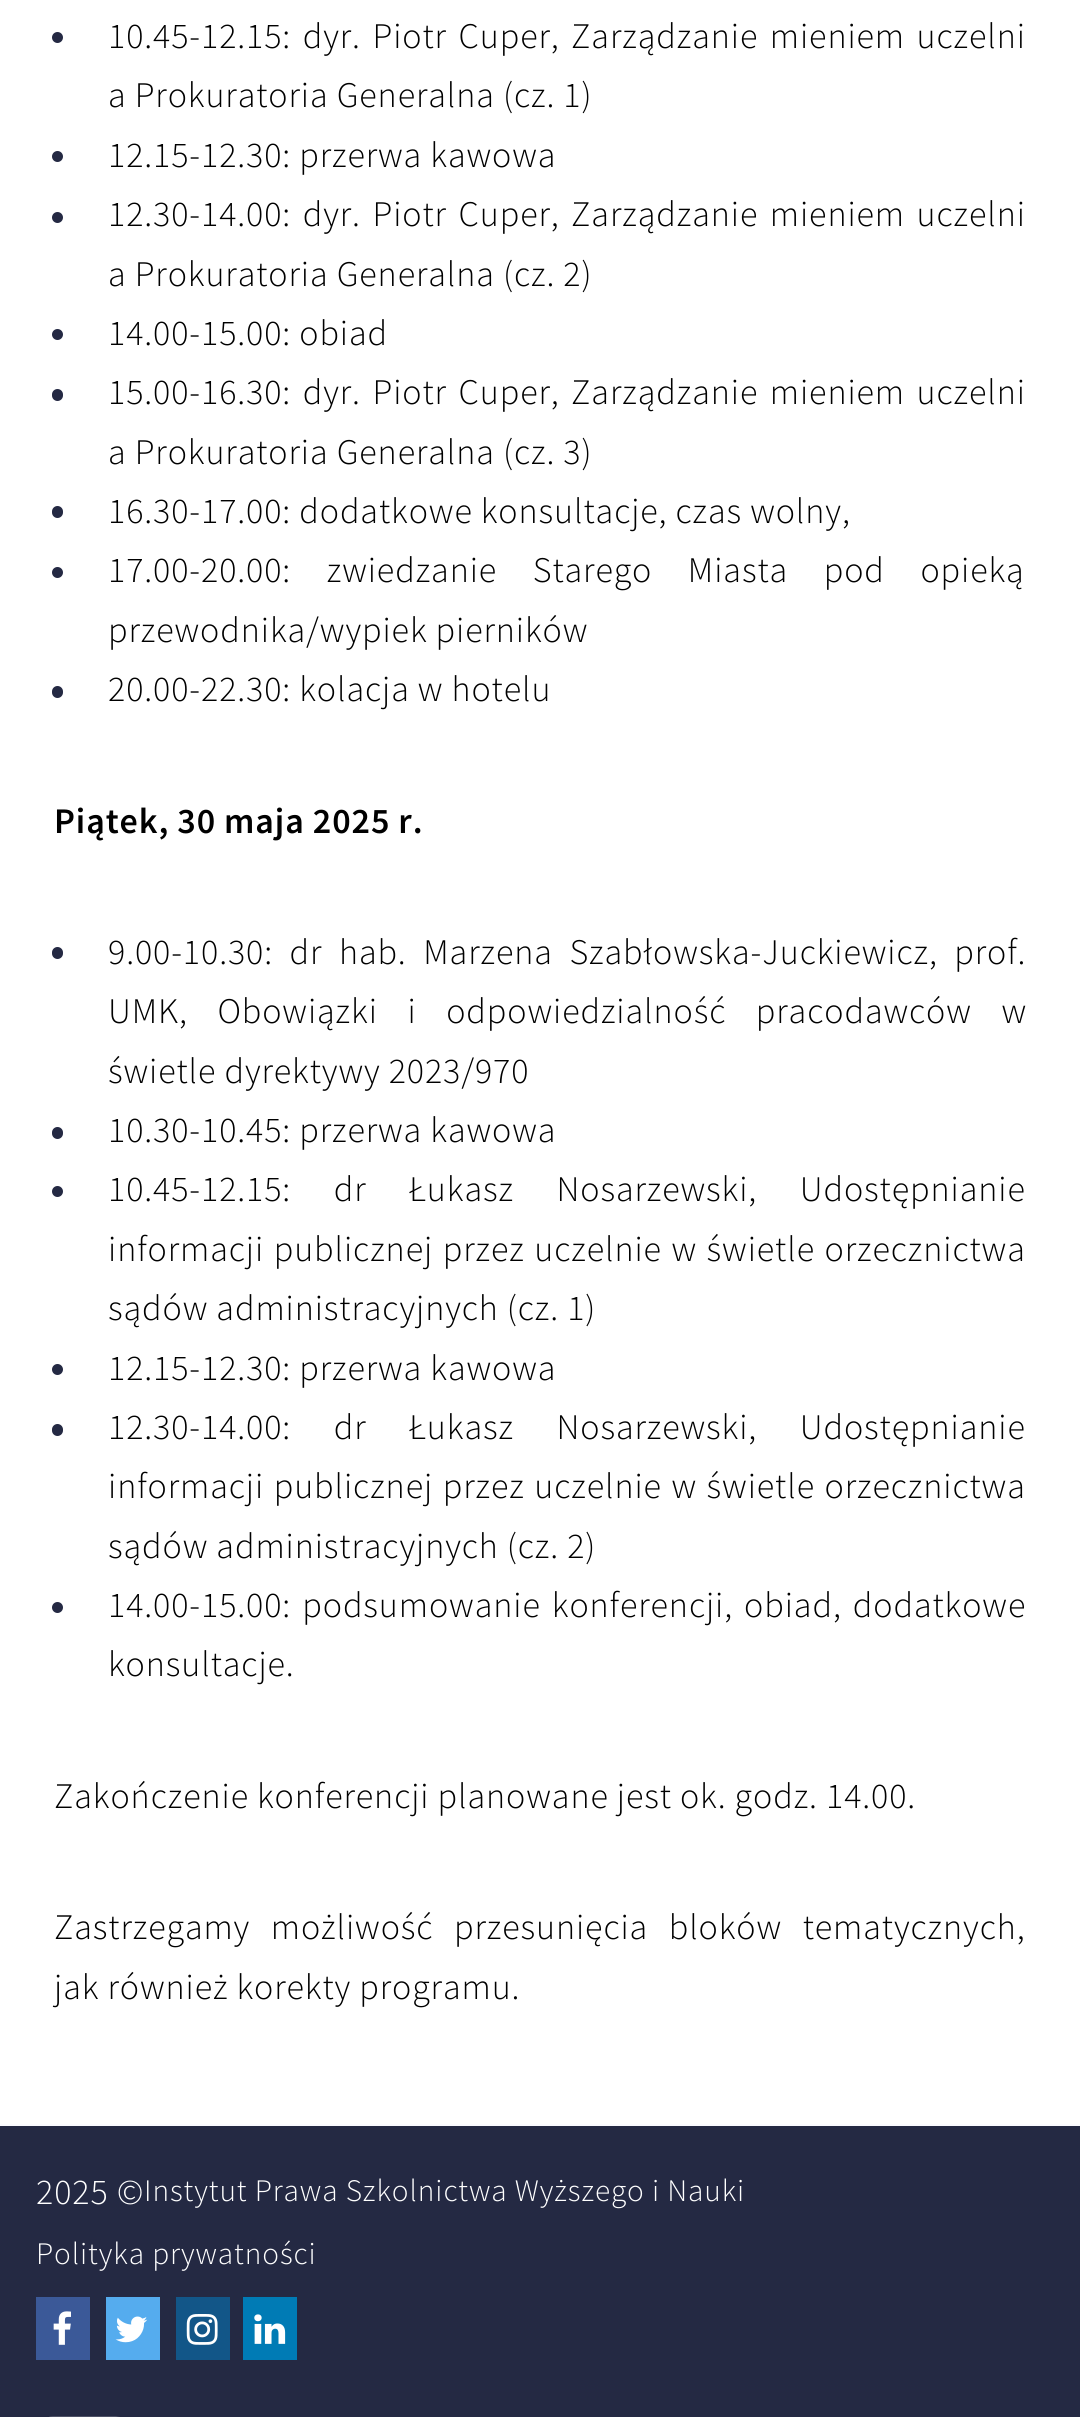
#include <cairo.h>
#include <math.h>
#include <stddef.h>

static cairo_t *c;
static void C(unsigned color){cairo_set_source_rgb(c, (color >> 16) / 255.0, (color >> 8 & 255) / 255.0, (color & 255) / 255.0);}
static void F(const char *family, double size, int italic, int bold){cairo_select_font_face(c, family, italic ? CAIRO_FONT_SLANT_ITALIC : CAIRO_FONT_SLANT_NORMAL,bold ? CAIRO_FONT_WEIGHT_BOLD : CAIRO_FONT_WEIGHT_NORMAL);cairo_set_font_size(c, size);}
static void L(double x, double y, const char *s, double letter, double word){cairo_move_to(c, x, y);while (*s) {char ch[5] = {0};int n = 0;do ch[n++] = *s++; while ((*s & 0xC0) == 0x80);cairo_show_text(c, ch);cairo_rel_move_to(c, letter + word * (*ch == ' '), 0);}}
static void R(double x, double y, double w, double h){cairo_rectangle(c, x, y, w, h);cairo_fill(c);}
static void Q(double x, double y, double w, double h, double r){cairo_new_sub_path(c);cairo_arc(c, x + w - r, y + h - r, r, 0, M_PI / 2);cairo_arc(c, x + r, y + h - r, r, M_PI / 2, M_PI);cairo_arc(c, x + r, y + r, r, M_PI, 1.5 * M_PI);cairo_arc(c, x + w - r, y + r, r, 1.5 * M_PI, 2 * M_PI);cairo_close_path(c);}
static void I(const char *path, double x, double y, double w, double h){cairo_surface_t *image = cairo_image_surface_create_from_png(path);cairo_save(c);cairo_set_source_surface(c, image, x, y);cairo_rectangle(c, x, y, w, h);cairo_fill(c);cairo_restore(c);cairo_surface_destroy(image);}
int main(void) {
cairo_surface_t *surface = cairo_image_surface_create(CAIRO_FORMAT_RGB24, 1080, 2417);
c = cairo_create(surface);
cairo_font_options_t *options = cairo_font_options_create();
cairo_font_options_set_hint_metrics(options, CAIRO_HINT_METRICS_OFF);
cairo_font_options_set_hint_style(options, CAIRO_HINT_STYLE_NONE);
cairo_set_font_options(c, options);
cairo_set_miter_limit(c, 4);
C(0x242943);
cairo_paint(c);
C(0xffffff);
R(0,0,1080,2124);
C(0xfbfbff);
R(0,2124,1080,2);
C(0x242943);
cairo_arc(c,57.5,37.5,5.5,0,2 * M_PI);
cairo_fill(c);
F("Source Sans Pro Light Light",36,0,0);
C(0x000000);
L(108,48,"10.45-12.15: dyr. Piotr Cuper, Zarządzanie mieniem uczelni",.9,3.5);
L(108,107,"a Prokuratoria Generalna (cz. 1)",.9,0);
C(0x242943);
cairo_new_path(c);
cairo_arc(c,57.5,156.5,5.5,0,2 * M_PI);
cairo_fill(c);
C(0x000000);
L(108,167,"12.15-12.30: przerwa kawowa",.9,0);
C(0x242943);
cairo_new_path(c);
cairo_arc(c,57.5,217.5,5.5,0,2 * M_PI);
cairo_fill(c);
C(0x000000);
L(108,226,"12.30-14.00: dyr. Piotr Cuper, Zarządzanie mieniem uczelni",.9,3.5);
L(108,286,"a Prokuratoria Generalna (cz. 2)",.9,0);
C(0x242943);
cairo_new_path(c);
cairo_arc(c,57.5,334.5,5.5,0,2 * M_PI);
cairo_fill(c);
C(0x000000);
L(108,345,"14.00-15.00: obiad",.9,0);
C(0x242943);
Q(52,389,11,12,5.5);
cairo_fill(c);
C(0x000000);
L(108,404,"15.00-16.30: dyr. Piotr Cuper, Zarządzanie mieniem uczelni",.9,3.5);
L(108,464,"a Prokuratoria Generalna (cz. 3)",.9,0);
C(0x242943);
Q(52,506,11,12,5.5);
cairo_fill(c);
C(0x000000);
L(108,523,"16.30-17.00: dodatkowe konsultacje, czas wolny,",.9,0);
C(0x242943);
cairo_new_path(c);
cairo_arc(c,57.5,572.5,5.5,0,2 * M_PI);
cairo_fill(c);
C(0x000000);
L(108,582,"17.00-20.00: zwiedzanie Starego Miasta pod opieką",.9,27.5);
L(108,642,"przewodnika/wypiek pierników",.9,0);
C(0x242943);
Q(52,686,11,12,5.5);
cairo_fill(c);
C(0x000000);
L(108,701,"20.00-22.30: kolacja w hotelu",.9,0);
F("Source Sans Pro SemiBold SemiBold",36,0,0);
L(54,833,"Piątek, 30 maja 2025 r.",.9,0);
C(0x242943);
Q(52,947,11,12,5.5);
cairo_fill(c);
F("Source Sans Pro Light Light",36,0,0);
C(0x000000);
L(108,964,"9.00-10.30: dr hab. Marzena Szabłowska-Juckiewicz, prof.",.9,8.5);
L(108,1023,"UMK, Obowiązki i odpowiedzialność pracodawców w",.9,21.5);
L(108,1083,"świetle dyrektywy 2023/970",.9,0);
C(0x242943);
Q(52,1127,11,12,5.5);
cairo_fill(c);
C(0x000000);
L(108,1142,"10.30-10.45: przerwa kawowa",.9,0);
C(0x242943);
cairo_new_path(c);
cairo_arc(c,57.5,1191.5,5.5,0,2 * M_PI);
cairo_fill(c);
C(0x000000);
L(108,1201,"10.45-12.15: dr Łukasz Nosarzewski, Udostępnianie",.9,34.5);
L(108,1261,"informacji publicznej przez uczelnie w świetle orzecznictwa",.9,1.5);
L(108,1320,"sądów administracyjnych (cz. 1)",.9,0);
C(0x242943);
cairo_new_path(c);
cairo_arc(c,57.5,1369.5,5.5,0,2 * M_PI);
cairo_fill(c);
C(0x000000);
L(108,1380,"12.15-12.30: przerwa kawowa",.9,0);
C(0x242943);
Q(52,1424,11,12,5.5);
cairo_fill(c);
C(0x000000);
L(108,1439,"12.30-14.00: dr Łukasz Nosarzewski, Udostępnianie",.9,34.5);
L(108,1498,"informacji publicznej przez uczelnie w świetle orzecznictwa",.9,1.5);
L(108,1558,"sądów administracyjnych (cz. 2)",.9,0);
C(0x242943);
cairo_new_path(c);
cairo_arc(c,57.5,1607.5,5.5,0,2 * M_PI);
cairo_fill(c);
C(0x000000);
L(108,1617,"14.00-15.00: podsumowanie konferencji, obiad, dodatkowe",.9,3);
L(108,1676,"konsultacje.",.9,0);
L(54,1808,"Zakończenie konferencji planowane jest ok. godz. 14.00.",.9,0);
L(54,1939,"Zastrzegamy możliwość przesunięcia bloków tematycznych,",.9,12.5);
L(54,1999,"jak również korekty programu.",.9,0);
C(0xffffff);
L(36,2204,"2025 ©",.9,0);
F("Source Sans Pro Light Light",31.3,0,0);
L(144,2201,"Instytut Prawa Szkolnictwa Wyższego i Nauki",.9,0);
L(36,2264,"Polityka prywatności",.9,0);
C(0x3b5998);
R(36,2297,54,63);
I("1.png",53,2311,18,34);
C(0x55acee);
R(106,2297,54,63);
I("2.png",115,2316,33,27);
C(0x125688);
R(176,2297,54,63);
I("3.png",186,2314,32,31);
C(0x007bb5);
R(243,2297,54,63);
I("4.png",254,2314,32,30);
I("5.png",49,2416,71,1);
cairo_surface_write_to_png(surface, "o.png");
cairo_font_options_destroy(options);
cairo_destroy(c);
cairo_surface_destroy(surface);
return 0;
}
